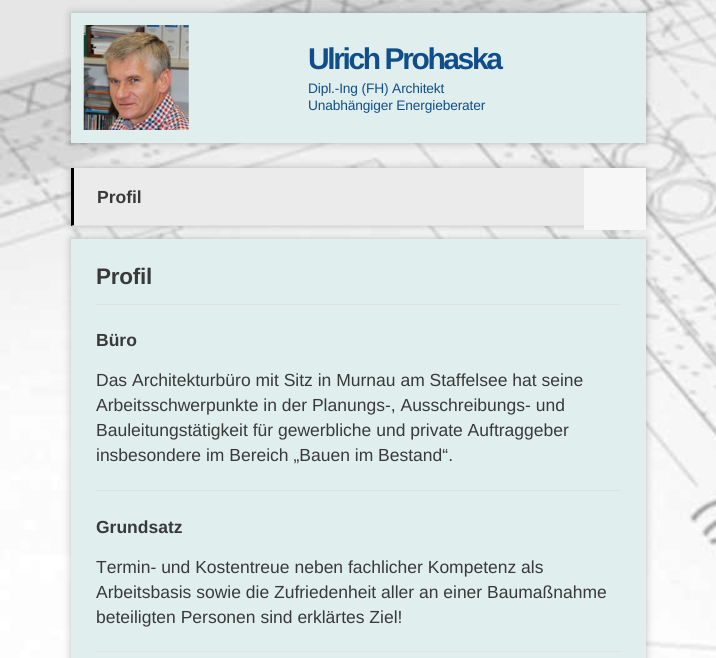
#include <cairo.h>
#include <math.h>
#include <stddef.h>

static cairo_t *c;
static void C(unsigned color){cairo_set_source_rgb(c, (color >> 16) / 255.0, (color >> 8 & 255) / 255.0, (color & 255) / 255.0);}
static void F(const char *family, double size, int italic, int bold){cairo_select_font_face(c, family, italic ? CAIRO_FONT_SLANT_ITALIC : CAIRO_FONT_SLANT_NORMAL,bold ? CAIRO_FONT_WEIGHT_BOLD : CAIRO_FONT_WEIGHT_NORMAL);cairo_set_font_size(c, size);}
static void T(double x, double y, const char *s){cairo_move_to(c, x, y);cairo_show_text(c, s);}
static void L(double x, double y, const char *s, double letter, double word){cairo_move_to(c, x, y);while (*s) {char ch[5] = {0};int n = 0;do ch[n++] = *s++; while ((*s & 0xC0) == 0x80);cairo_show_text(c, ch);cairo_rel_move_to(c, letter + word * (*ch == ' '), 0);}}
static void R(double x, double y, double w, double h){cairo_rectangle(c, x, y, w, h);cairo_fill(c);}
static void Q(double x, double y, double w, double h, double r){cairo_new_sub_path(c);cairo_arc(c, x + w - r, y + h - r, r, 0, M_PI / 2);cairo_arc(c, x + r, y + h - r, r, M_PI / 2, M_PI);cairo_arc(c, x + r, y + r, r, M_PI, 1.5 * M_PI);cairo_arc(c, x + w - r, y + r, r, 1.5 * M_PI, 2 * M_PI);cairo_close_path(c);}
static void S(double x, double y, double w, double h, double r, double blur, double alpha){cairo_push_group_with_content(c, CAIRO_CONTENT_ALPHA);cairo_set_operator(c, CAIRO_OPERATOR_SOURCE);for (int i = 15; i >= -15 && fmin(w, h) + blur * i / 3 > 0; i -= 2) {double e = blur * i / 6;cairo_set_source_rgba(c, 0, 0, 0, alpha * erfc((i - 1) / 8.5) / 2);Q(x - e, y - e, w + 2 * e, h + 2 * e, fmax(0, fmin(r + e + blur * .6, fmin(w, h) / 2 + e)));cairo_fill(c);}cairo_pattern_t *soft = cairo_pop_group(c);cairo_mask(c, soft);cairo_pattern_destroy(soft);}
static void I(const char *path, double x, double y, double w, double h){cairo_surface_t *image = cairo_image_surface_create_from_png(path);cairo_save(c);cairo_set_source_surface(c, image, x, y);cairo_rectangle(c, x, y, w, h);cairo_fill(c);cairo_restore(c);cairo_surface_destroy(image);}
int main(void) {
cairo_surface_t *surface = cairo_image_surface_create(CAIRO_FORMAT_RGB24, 716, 658);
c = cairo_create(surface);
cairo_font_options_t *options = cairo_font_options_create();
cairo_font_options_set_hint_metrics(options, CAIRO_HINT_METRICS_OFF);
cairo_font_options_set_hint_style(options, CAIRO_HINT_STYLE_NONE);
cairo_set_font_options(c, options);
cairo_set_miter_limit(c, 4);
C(0xffffff);
cairo_paint(c);
I("1.png",0,0,716,658);
C(0x000000);
S(71,13,575,130,0,4,.25);
C(0xe0eeee);
R(71,13,575,130);
I("2.png",83,25,106,105);
F("Liberation Sans",30,0,1);
C(0x104e8b);
L(308,69,"Ulrich Prohaska",-2.4,0);
F("Liberation Sans",13.75,0,0);
L(308,93,"Dipl.-Ing (FH) Architekt",-.15,0);
L(308,110,"Unabhängiger Energieberater",-.15,0);
C(0x000000);
S(71,168,575,58,0,4,.25);
C(0xebebeb);
R(71,168,513,58);
C(0xe0e0e0);
cairo_new_path(c);
cairo_move_to(c,646,226);
cairo_line_to(c,71,226);
cairo_line_to(c,74,225);
cairo_line_to(c,646,225);
cairo_close_path(c);
cairo_fill(c);
C(0x000000);
cairo_new_path(c);
cairo_move_to(c,71,226);
cairo_line_to(c,71,168);
cairo_line_to(c,74,168);
cairo_line_to(c,74,225);
cairo_close_path(c);
cairo_fill(c);
F("Liberation Sans",17.5,0,1);
C(0x393939);
T(97,203,"Profil");
C(0x000000);
S(71,239,575,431,0,4,.25);
C(0xf7f7f7);
R(584,168,62,62);
C(0xe0eeee);
R(71,239,575,419);
F("Liberation Sans",22.5,0,1);
C(0x393939);
L(96,284,"Profil",-.25,0);
C(0xe0e0e0);
R(96,304,525,1);
R(96,490,525,1);
F("Liberation Sans",17.5,0,1);
C(0x393939);
T(96,346,"Büro");
F("Liberation Sans",17.5,0,0);
T(96,386,"Das Architekturbüro mit Sitz in Murnau am Staffelsee hat seine");
T(96,411,"Arbeitsschwerpunkte in der Planungs-, Ausschreibungs- und");
T(96,436,"Bauleitungstätigkeit für gewerbliche und private Auftraggeber");
T(96,461,"insbesondere im Bereich „Bauen im Bestand“.");
C(0xe0e0e0);
R(96,651,525,1);
F("Liberation Sans",17.5,0,1);
C(0x393939);
T(96,533,"Grundsatz");
F("Liberation Sans",17.5,0,0);
T(96,573,"Termin- und Kostentreue neben fachlicher Kompetenz als");
T(96,598,"Arbeitsbasis sowie die Zufriedenheit aller an einer Baumaßnahme");
T(96,623,"beteiligten Personen sind erklärtes Ziel!");
cairo_surface_write_to_png(surface, "o.png");
cairo_font_options_destroy(options);
cairo_destroy(c);
cairo_surface_destroy(surface);
return 0;
}
